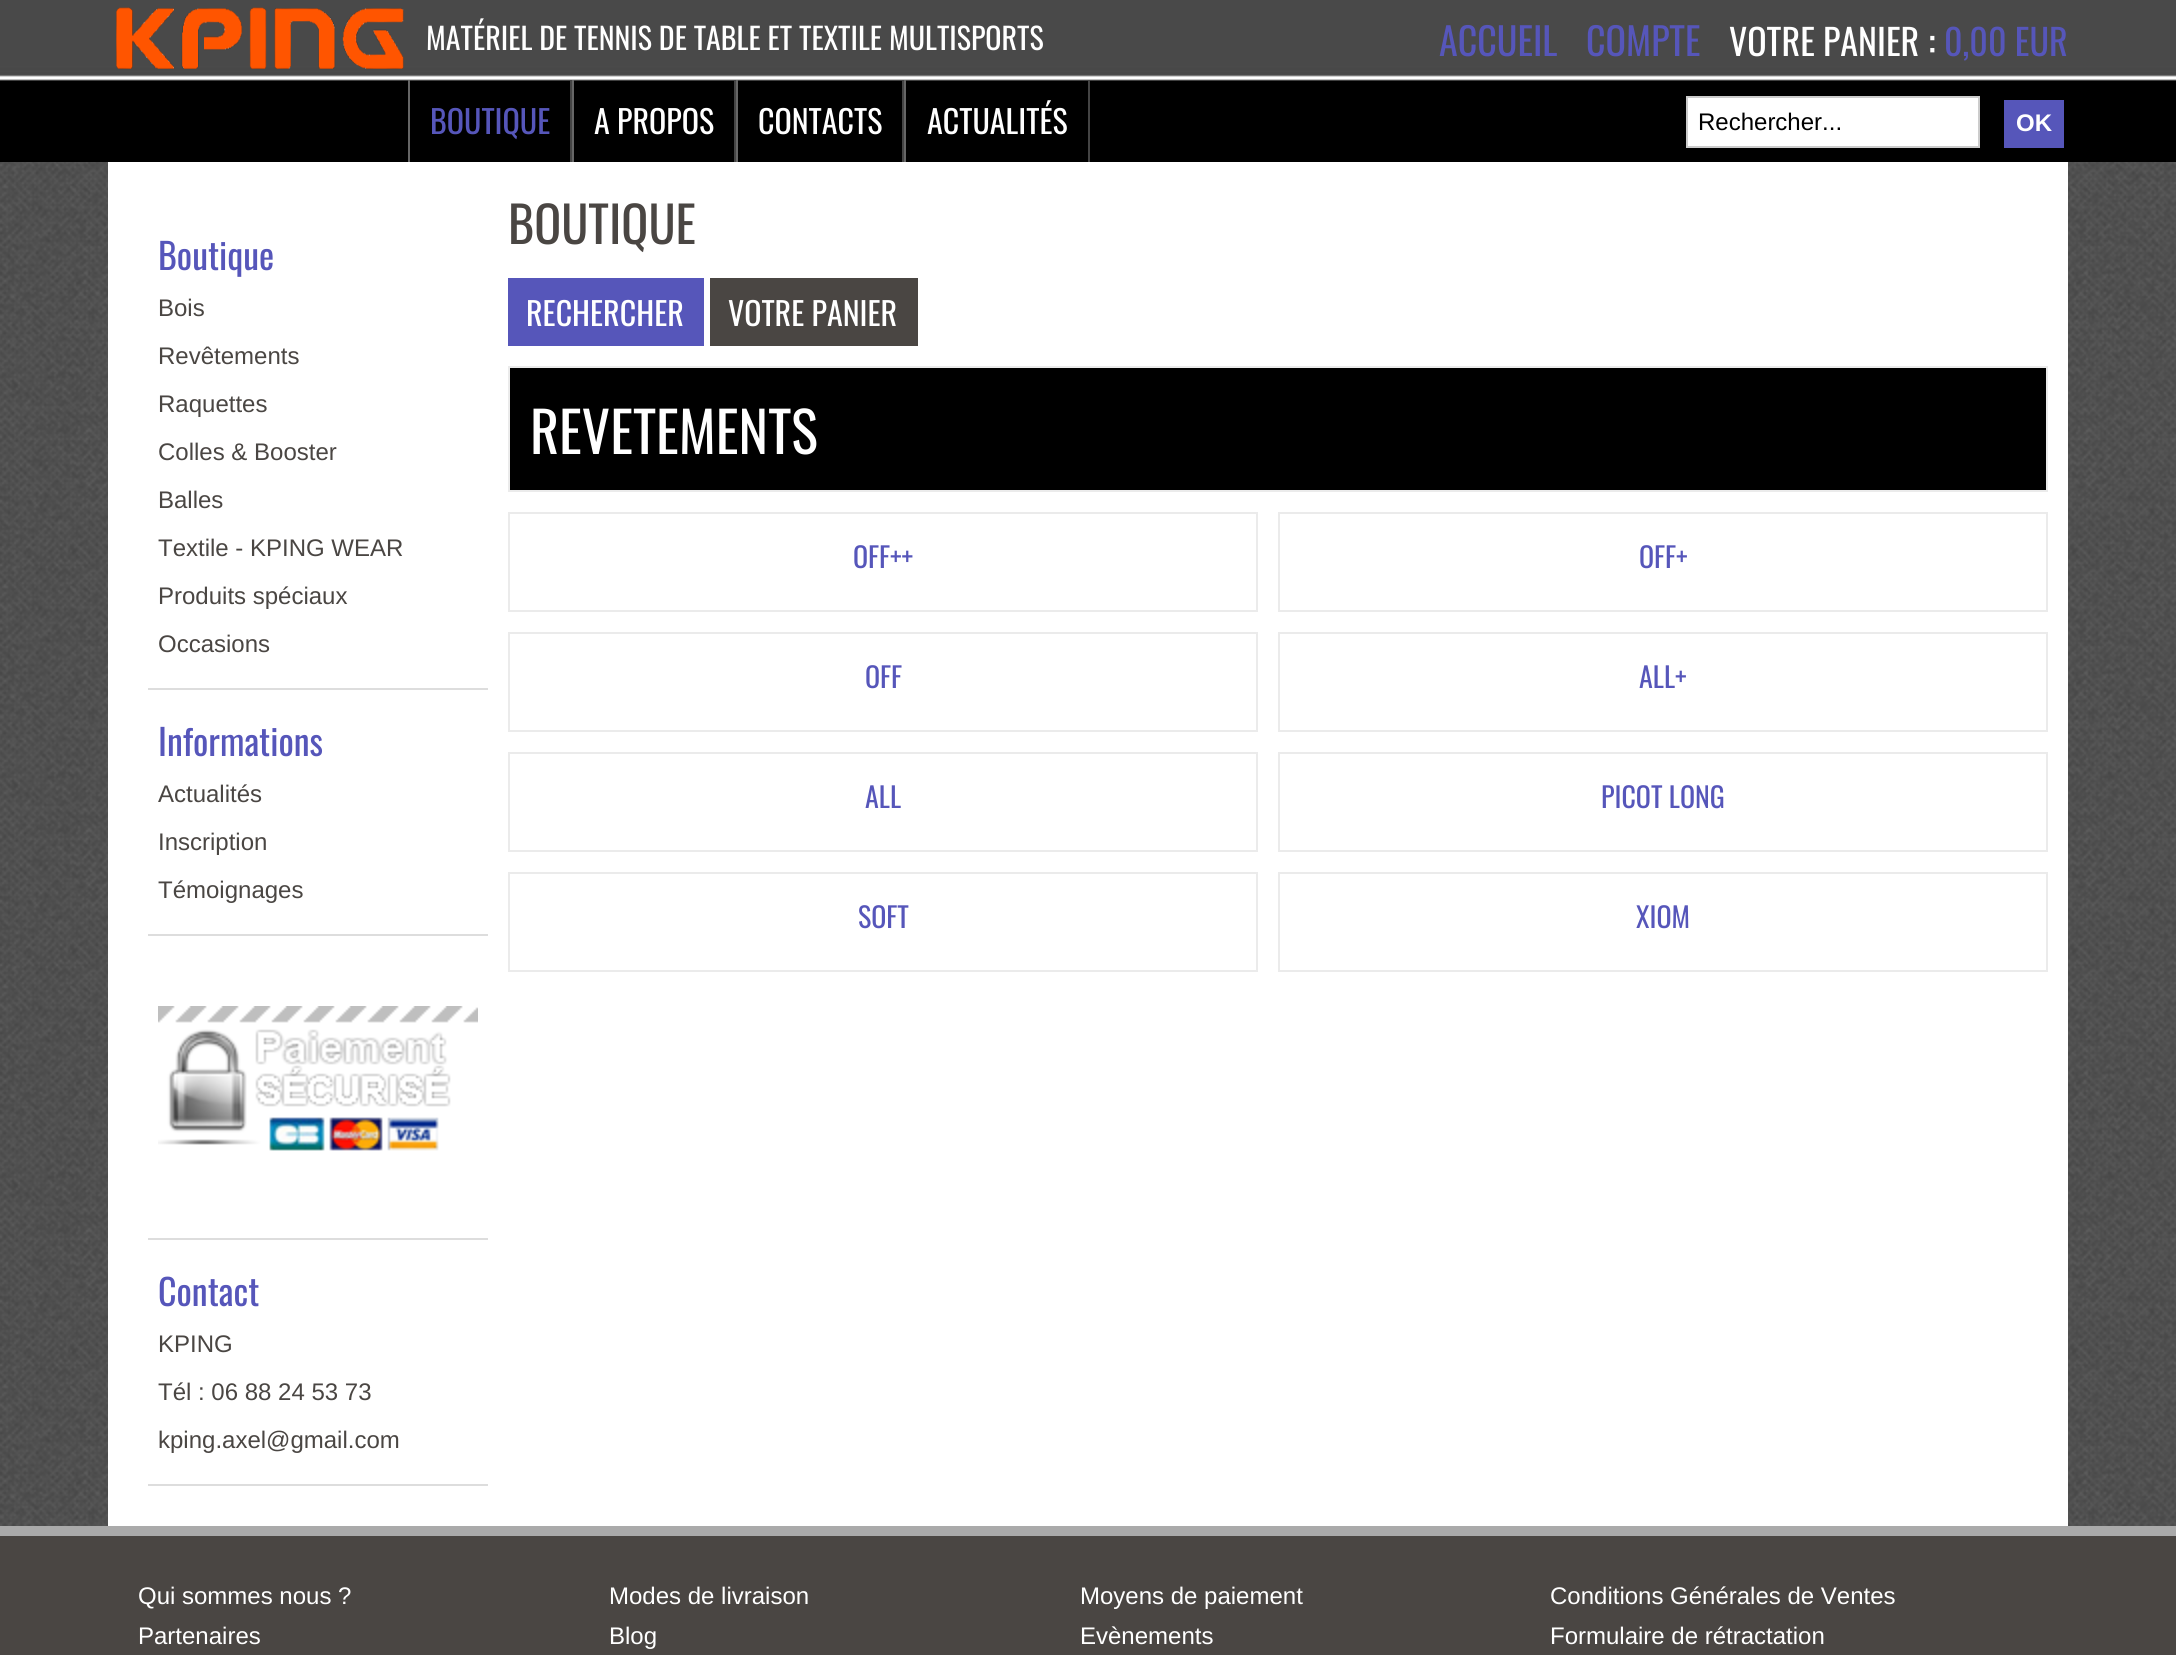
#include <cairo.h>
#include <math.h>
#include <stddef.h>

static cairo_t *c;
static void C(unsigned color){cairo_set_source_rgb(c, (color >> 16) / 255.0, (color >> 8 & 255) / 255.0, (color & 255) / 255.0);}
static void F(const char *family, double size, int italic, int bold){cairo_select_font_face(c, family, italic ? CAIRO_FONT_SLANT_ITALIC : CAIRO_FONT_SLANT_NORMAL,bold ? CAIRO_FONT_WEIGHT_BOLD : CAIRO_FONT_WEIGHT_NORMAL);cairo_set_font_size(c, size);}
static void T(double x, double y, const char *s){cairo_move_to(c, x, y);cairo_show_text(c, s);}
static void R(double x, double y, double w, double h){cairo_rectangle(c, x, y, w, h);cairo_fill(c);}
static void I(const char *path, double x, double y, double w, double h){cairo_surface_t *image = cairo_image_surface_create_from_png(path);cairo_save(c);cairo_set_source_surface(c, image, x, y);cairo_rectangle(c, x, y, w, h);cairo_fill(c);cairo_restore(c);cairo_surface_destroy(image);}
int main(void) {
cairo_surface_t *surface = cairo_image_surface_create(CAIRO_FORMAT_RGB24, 2176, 1655);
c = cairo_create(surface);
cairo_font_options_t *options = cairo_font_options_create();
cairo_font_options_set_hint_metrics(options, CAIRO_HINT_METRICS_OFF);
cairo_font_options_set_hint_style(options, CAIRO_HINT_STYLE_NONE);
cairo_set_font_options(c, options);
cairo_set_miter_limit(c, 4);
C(0xffffff);
cairo_paint(c);
I("1.png",0,162,2176,1364);
I("2.png",0,0,2176,162);
I("3.png",116,7,288,62);
F("Oswald",30,0,0);
C(0xffffff);
T(426,50,"MATÉRIEL DE TENNIS DE TABLE ET TEXTILE MULTISPORTS");
F("Oswald",38,0,0);
C(0x5656ba);
T(1439,56,"ACCUEIL");
T(1586,56,"COMPTE");
F("Oswald",36,0,0);
C(0xffffff);
T(1729,56,"VOTRE PANIER");
F("Oswald",38,0,0);
T(1928,56,":");
F("Oswald",36,0,0);
C(0x5656ba);
T(1944,56,"0,00 EUR");
C(0xffffff);
cairo_rectangle(c,1687,97,292,50);
cairo_fill_preserve(c);
C(0xcccccc);
cairo_stroke(c);
F("Liberation Sans",24,0,0);
C(0x000000);
T(1698,130,"Rechercher...");
C(0x5656ba);
R(2004,100,60,48);
F("Liberation Sans",24,0,1);
C(0xffffff);
T(2016,131,"OK");
C(0x444444);
R(570,80,2,82);
C(0x666666);
R(408,80,2,82);
F("Oswald",32,0,0);
C(0x5656ba);
T(430,134,"BOUTIQUE");
C(0x444444);
R(734,80,2,82);
C(0x666666);
R(572,80,2,82);
C(0xffffff);
T(594,134,"A PROPOS");
C(0x444444);
R(902,80,2,82);
C(0x666666);
R(736,80,2,82);
C(0xffffff);
T(758,134,"CONTACTS");
C(0x444444);
R(1088,80,2,82);
C(0x666666);
R(904,80,2,82);
C(0xffffff);
T(927,134,"ACTUALITÉS");
R(108,162,1960,1364);
F("Oswald",36,0,0);
C(0x5656ba);
T(158,270,"Boutique");
F("Liberation Sans",24,0,0);
C(0x4a4643);
T(158,316,"Bois");
T(158,364,"Revêtements");
T(158,412,"Raquettes");
T(158,460,"Colles & Booster");
T(158,508,"Balles");
T(158,556,"Textile - KPING WEAR");
T(158,604,"Produits spéciaux");
T(158,652,"Occasions");
C(0xdddddd);
R(148,688,340,2);
F("Oswald",36,0,0);
C(0x5656ba);
T(158,756,"Informations");
F("Liberation Sans",24,0,0);
C(0x4a4643);
T(158,802,"Actualités");
T(158,850,"Inscription");
T(158,898,"Témoignages");
C(0xdddddd);
R(148,934,340,2);
I("4.png",158,1006,320,145);
R(148,1238,340,2);
F("Oswald",36,0,0);
C(0x5656ba);
T(158,1306,"Contact");
F("Liberation Sans",24,0,0);
C(0x4a4643);
T(158,1352,"KPING");
T(158,1400,"Tél : 06 88 24 53 73");
T(158,1448,"kping.axel@gmail.com");
C(0xdddddd);
R(148,1484,340,2);
F("Oswald",50,0,0);
C(0x4a4643);
T(508,244,"BOUTIQUE");
C(0x5656ba);
R(508,278,196,68);
F("Oswald",32,0,0);
C(0xffffff);
T(526,326,"RECHERCHER");
C(0x4a4643);
R(710,278,208,68);
C(0xffffff);
T(728,326,"VOTRE PANIER");
cairo_rectangle(c,509,367,1538,124);
C(0xebebeb);
cairo_stroke(c);
C(0x000000);
R(510,368,1536,122);
F("Oswald",56,0,0);
C(0xffffff);
T(530,454,"REVETEMENTS");
cairo_rectangle(c,509,513,748,98);
C(0xebebeb);
cairo_stroke(c);
F("Oswald",28,0,0);
C(0x5656ba);
T(853,568,"OFF++");
cairo_rectangle(c,1279,513,768,98);
C(0xebebeb);
cairo_stroke(c);
C(0x5656ba);
T(1639,568,"OFF+");
cairo_rectangle(c,509,633,748,98);
C(0xebebeb);
cairo_stroke(c);
C(0x5656ba);
T(865,688,"OFF");
cairo_rectangle(c,1279,633,768,98);
C(0xebebeb);
cairo_stroke(c);
C(0x5656ba);
T(1639,688,"ALL+");
cairo_rectangle(c,509,753,748,98);
C(0xebebeb);
cairo_stroke(c);
C(0x5656ba);
T(865,808,"ALL");
cairo_rectangle(c,1279,753,768,98);
C(0xebebeb);
cairo_stroke(c);
C(0x5656ba);
T(1601,808,"PICOT LONG");
cairo_rectangle(c,509,873,748,98);
C(0xebebeb);
cairo_stroke(c);
C(0x5656ba);
T(858,928,"SOFT");
cairo_rectangle(c,1279,873,768,98);
C(0xebebeb);
cairo_stroke(c);
C(0x5656ba);
T(1636,928,"XIOM");
C(0x4a4643);
R(0,1536,2176,119);
C(0xaaaaaa);
R(0,1526,2176,10);
F("Liberation Sans",24,0,0);
C(0xffffff);
T(138,1604,"Qui sommes nous ?");
T(609,1604,"Modes de livraison");
T(1080,1604,"Moyens de paiement");
T(1550,1604,"Conditions Générales de Ventes");
T(138,1644,"Partenaires");
T(609,1644,"Blog");
T(1080,1644,"Evènements");
T(1550,1644,"Formulaire de rétractation");
cairo_surface_write_to_png(surface, "o.png");
cairo_font_options_destroy(options);
cairo_destroy(c);
cairo_surface_destroy(surface);
return 0;
}
